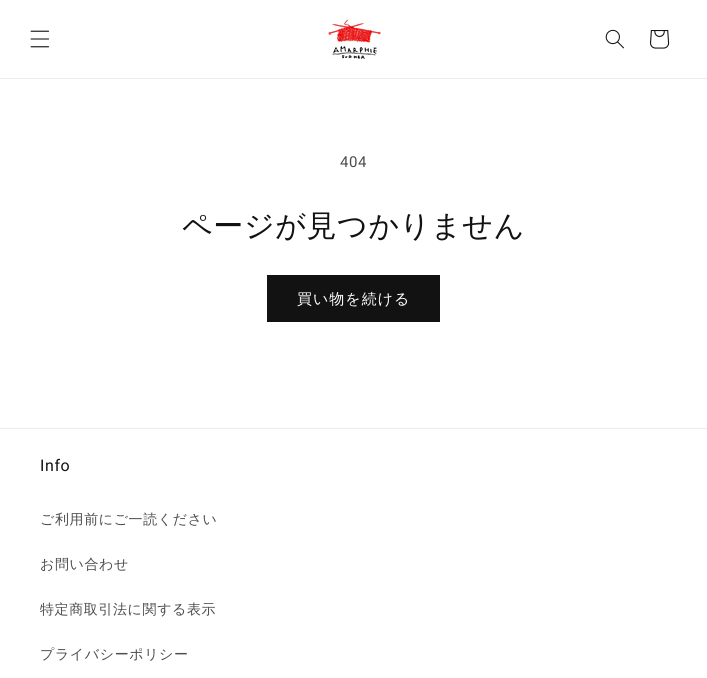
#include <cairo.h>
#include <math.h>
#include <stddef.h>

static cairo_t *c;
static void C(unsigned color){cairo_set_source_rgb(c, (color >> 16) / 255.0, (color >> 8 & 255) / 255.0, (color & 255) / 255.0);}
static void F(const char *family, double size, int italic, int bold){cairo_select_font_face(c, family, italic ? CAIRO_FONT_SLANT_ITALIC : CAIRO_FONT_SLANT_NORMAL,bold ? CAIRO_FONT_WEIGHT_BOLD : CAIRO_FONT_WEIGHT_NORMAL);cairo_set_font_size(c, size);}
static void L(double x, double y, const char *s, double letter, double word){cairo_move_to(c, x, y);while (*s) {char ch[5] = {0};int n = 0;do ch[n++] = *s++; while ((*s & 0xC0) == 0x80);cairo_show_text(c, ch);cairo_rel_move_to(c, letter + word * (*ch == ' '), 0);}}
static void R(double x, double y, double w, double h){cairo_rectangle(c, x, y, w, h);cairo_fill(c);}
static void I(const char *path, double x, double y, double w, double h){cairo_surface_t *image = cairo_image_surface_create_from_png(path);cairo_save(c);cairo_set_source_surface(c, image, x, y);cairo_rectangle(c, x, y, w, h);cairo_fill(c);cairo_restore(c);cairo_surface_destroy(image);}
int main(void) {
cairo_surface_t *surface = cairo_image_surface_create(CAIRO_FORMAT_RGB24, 707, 678);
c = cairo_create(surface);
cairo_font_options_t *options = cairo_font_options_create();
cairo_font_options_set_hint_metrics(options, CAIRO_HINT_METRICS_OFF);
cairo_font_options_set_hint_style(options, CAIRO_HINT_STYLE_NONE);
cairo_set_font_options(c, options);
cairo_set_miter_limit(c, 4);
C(0xffffff);
cairo_paint(c);
C(0xececec);
R(0,78,707,1);
I("1.png",30,30,20,18);
I("2.png",328,19,53,40);
I("3.png",605,29,19,20);
I("4.png",650,30,20,19);
F("Roboto",15,0,0);
C(0x4d4d4d);
L(340,167,"404",.6,0);
F("WenQuanYi Zen Hei Medium",30,0,0);
C(0x121212);
L(182,236,"ページが見つかりません",.6,0);
R(267,275,173,47);
F("WenQuanYi Zen Hei Medium",15,0,0);
C(0xffffff);
L(297,304,"買い物を続ける",1,0);
C(0xececec);
R(0,428,707,1);
F("Roboto",16,0,0);
C(0x121212);
L(40,471,"Info",.6,0);
F("WenQuanYi Zen Hei Medium",14,0,0);
C(0x4d4d4d);
L(40,524,"ご利用前にご一読ください",.6,0);
L(40,569,"お問い合わせ",.6,0);
L(40,614,"特定商取引法に関する表示",.6,0);
L(40,659,"プライバシーポリシー",.6,0);
cairo_surface_write_to_png(surface, "o.png");
cairo_font_options_destroy(options);
cairo_destroy(c);
cairo_surface_destroy(surface);
return 0;
}
